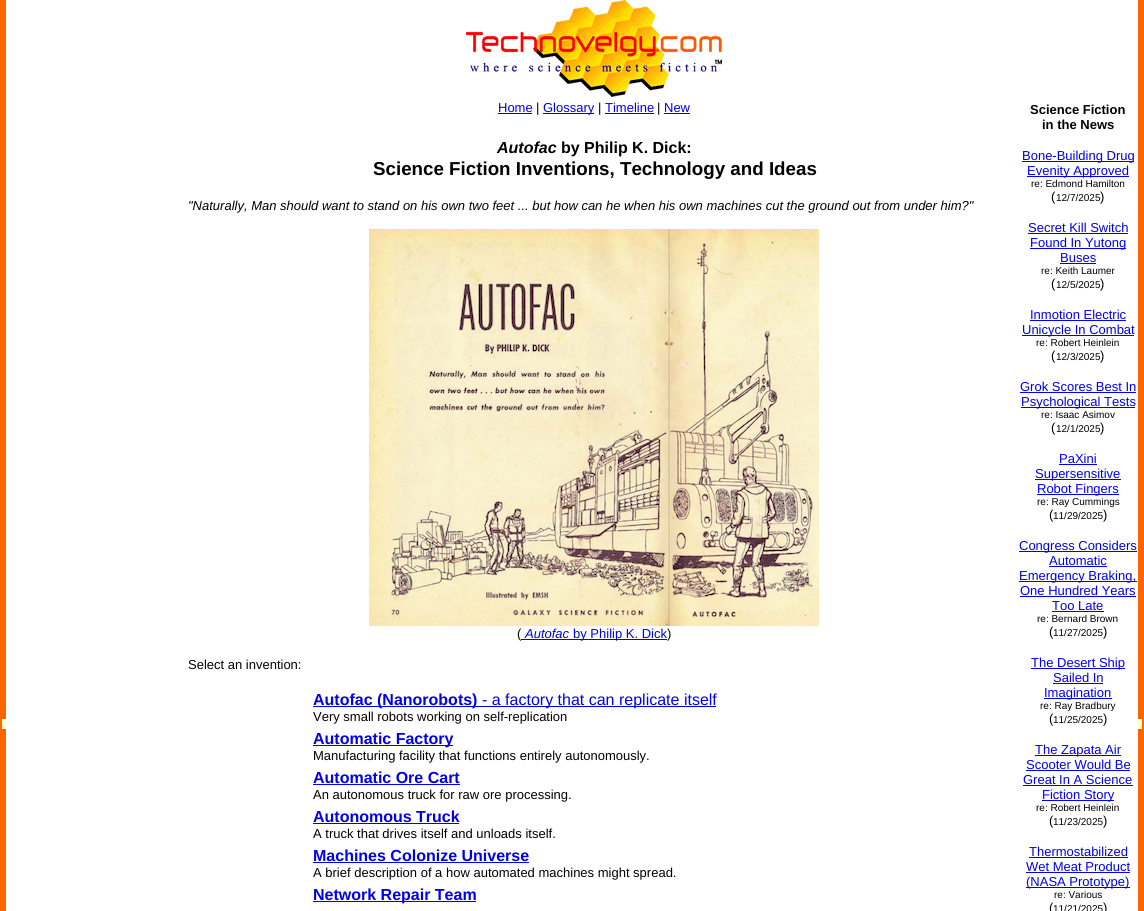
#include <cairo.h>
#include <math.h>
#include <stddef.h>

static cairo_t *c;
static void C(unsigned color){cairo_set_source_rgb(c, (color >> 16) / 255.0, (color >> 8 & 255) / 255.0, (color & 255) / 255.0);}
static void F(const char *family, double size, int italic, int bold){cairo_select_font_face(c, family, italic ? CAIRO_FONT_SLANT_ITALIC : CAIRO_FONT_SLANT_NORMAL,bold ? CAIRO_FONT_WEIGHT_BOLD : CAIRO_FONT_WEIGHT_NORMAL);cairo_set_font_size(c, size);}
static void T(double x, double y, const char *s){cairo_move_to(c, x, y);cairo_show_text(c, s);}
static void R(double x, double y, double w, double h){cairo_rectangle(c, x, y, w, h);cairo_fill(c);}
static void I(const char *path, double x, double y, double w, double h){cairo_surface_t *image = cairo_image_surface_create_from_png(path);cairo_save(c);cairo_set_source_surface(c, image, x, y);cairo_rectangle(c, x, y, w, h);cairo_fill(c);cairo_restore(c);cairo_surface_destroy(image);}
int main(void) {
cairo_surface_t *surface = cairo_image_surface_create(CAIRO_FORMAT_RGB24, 1144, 911);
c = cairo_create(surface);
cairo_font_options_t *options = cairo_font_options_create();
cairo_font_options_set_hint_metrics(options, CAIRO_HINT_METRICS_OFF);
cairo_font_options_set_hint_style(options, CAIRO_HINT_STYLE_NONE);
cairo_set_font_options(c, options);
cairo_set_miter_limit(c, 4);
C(0xffffff);
cairo_paint(c);
C(0xff6600);
R(0,0,6,911);
C(0xffffcc);
R(2,719,4,10);
I("1.png",466,0,256,97);
F("Liberation Sans",13,0,0);
C(0x0000ee);
T(498,112,"Home");
R(498,113,34,1);
C(0x000000);
T(536,112,"|");
C(0x0000ee);
R(543,113,51,1);
T(543,112,"Glossary");
C(0x000000);
T(598,112,"|");
C(0x0000ee);
T(605,112,"Timeline");
R(605,113,49,1);
C(0x000000);
T(657,112,"|");
C(0x0000ee);
T(664,112,"New");
R(664,113,26,1);
F("Liberation Sans",16,1,1);
C(0x000000);
T(497,153,"Autofac");
F("Liberation Sans",16,0,1);
T(561,153,"by Philip K. Dick:");
F("Liberation Sans",18.75,0,1);
T(373,175,"Science Fiction Inventions, Technology and Ideas");
F("Liberation Sans",13,1,0);
T(188,210,"\"Naturally, Man should want to stand on his own two feet ... but how can he when his own machines cut the ground out from under him?\"");
I("2.png",369,229,450,397);
F("Liberation Sans",13,0,0);
T(517,638,"(");
C(0x0000ee);
R(521,639,146,1);
F("Liberation Sans",13,1,0);
T(525,638,"Autofac");
F("Liberation Sans",13,0,0);
T(573,638,"by Philip K. Dick");
C(0x000000);
T(667,638,")");
T(188,669,"Select an invention:");
C(0x0000ee);
R(313,706,403,1);
F("Liberation Sans",16,0,1);
T(313,705,"Autofac (Nanorobots)");
F("Liberation Sans",16,0,0);
T(482,705,"- a factory that can replicate itself");
F("Liberation Sans",13,0,0);
C(0x000000);
T(313,721,"Very small robots working on self-replication");
C(0x0000ee);
R(313,745,140,1);
F("Liberation Sans",16,0,1);
T(313,744,"Automatic Factory");
F("Liberation Sans",13,0,0);
C(0x000000);
T(313,760,"Manufacturing facility that functions entirely autonomously.");
F("Liberation Sans",16,0,1);
C(0x0000ee);
T(313,783,"Automatic Ore Cart");
R(313,784,147,1);
F("Liberation Sans",13,0,0);
C(0x000000);
T(313,799,"An autonomous truck for raw ore processing.");
F("Liberation Sans",16,0,1);
C(0x0000ee);
T(313,822,"Autonomous Truck");
R(313,823,146,1);
F("Liberation Sans",13,0,0);
C(0x000000);
T(313,838,"A truck that drives itself and unloads itself.");
F("Liberation Sans",16,0,1);
C(0x0000ee);
T(313,861,"Machines Colonize Universe");
R(313,862,216,1);
F("Liberation Sans",13,0,0);
C(0x000000);
T(313,877,"A brief description of a how automated machines might spread.");
C(0x0000ee);
R(313,901,163,1);
F("Liberation Sans",16,0,1);
T(313,900,"Network Repair Team");
F("Liberation Sans",13,0,1);
C(0x000000);
T(1030,114,"Science Fiction");
T(1042,129,"in the News");
C(0x0000ee);
R(1022,161,112,1);
F("Liberation Sans",13,0,0);
T(1022,160,"Bone-Building Drug");
R(1027,176,102,1);
T(1027,175,"Evenity Approved");
F("Liberation Sans",10,0,0);
C(0x000000);
T(1031,187,"re: Edmond Hamilton");
F("Liberation Sans",13,0,0);
T(1051,201,"(");
F("Liberation Sans",10,0,0);
T(1056,201,"12/7/2025");
F("Liberation Sans",13,0,0);
T(1100,201,")");
C(0x0000ee);
T(1028,232,"Secret Kill Switch");
R(1028,233,100,1);
R(1030,248,96,1);
T(1030,247,"Found In Yutong");
T(1060,262,"Buses");
R(1060,263,36,1);
F("Liberation Sans",10,0,0);
C(0x000000);
T(1041,274,"re: Keith Laumer");
F("Liberation Sans",13,0,0);
T(1051,288,"(");
F("Liberation Sans",10,0,0);
T(1056,288,"12/5/2025");
F("Liberation Sans",13,0,0);
T(1100,288,")");
C(0x0000ee);
T(1030,319,"Inmotion Electric");
R(1030,320,96,1);
R(1022,335,112,1);
T(1022,334,"Unicycle In Combat");
F("Liberation Sans",10,0,0);
C(0x000000);
T(1036,346,"re: Robert Heinlein");
F("Liberation Sans",13,0,0);
T(1051,360,"(");
F("Liberation Sans",10,0,0);
T(1056,360,"12/3/2025");
F("Liberation Sans",13,0,0);
T(1100,360,")");
C(0x0000ee);
T(1020,391,"Grok Scores Best In");
R(1020,392,116,1);
R(1021,407,114,1);
T(1021,406,"Psychological Tests");
F("Liberation Sans",10,0,0);
C(0x000000);
T(1041,418,"re: Isaac Asimov");
F("Liberation Sans",13,0,0);
T(1051,432,"(");
F("Liberation Sans",10,0,0);
T(1056,432,"12/1/2025");
F("Liberation Sans",13,0,0);
T(1100,432,")");
C(0x0000ee);
T(1059,463,"PaXini");
R(1059,464,38,1);
R(1035,479,86,1);
T(1035,478,"Supersensitive");
R(1037,494,82,1);
T(1037,493,"Robot Fingers");
F("Liberation Sans",10,0,0);
C(0x000000);
T(1037,505,"re: Ray Cummings");
F("Liberation Sans",13,0,0);
T(1049,519,"(");
F("Liberation Sans",10,0,0);
T(1053,519,"11/29/2025");
F("Liberation Sans",13,0,0);
T(1103,519,")");
C(0x0000ee);
R(1019,551,118,1);
T(1019,550,"Congress Considers");
T(1049,565,"Automatic");
R(1049,566,58,1);
R(1019,581,118,1);
T(1019,580,"Emergency Braking,");
T(1020,595,"One Hundred Years");
R(1020,596,116,1);
T(1052,610,"Too Late");
R(1052,611,52,1);
F("Liberation Sans",10,0,0);
C(0x000000);
T(1037,622,"re: Bernard Brown");
F("Liberation Sans",13,0,0);
T(1049,636,"(");
F("Liberation Sans",10,0,0);
T(1053,636,"11/27/2025");
F("Liberation Sans",13,0,0);
T(1103,636,")");
C(0x0000ee);
R(1031,668,94,1);
T(1031,667,"The Desert Ship");
T(1053,682,"Sailed In");
R(1053,683,50,1);
R(1044,698,68,1);
T(1044,697,"Imagination");
F("Liberation Sans",10,0,0);
C(0x000000);
T(1040,709,"re: Ray Bradbury");
F("Liberation Sans",13,0,0);
T(1049,723,"(");
F("Liberation Sans",10,0,0);
T(1053,723,"11/25/2025");
F("Liberation Sans",13,0,0);
T(1103,723,")");
C(0x0000ee);
R(1035,755,86,1);
T(1035,754,"The Zapata Air");
T(1026,769,"Scooter Would Be");
R(1026,770,104,1);
T(1023,784,"Great In A Science");
R(1023,785,110,1);
R(1042,800,72,1);
T(1042,799,"Fiction Story");
F("Liberation Sans",10,0,0);
C(0x000000);
T(1036,811,"re: Robert Heinlein");
F("Liberation Sans",13,0,0);
T(1049,825,"(");
F("Liberation Sans",10,0,0);
T(1053,825,"11/23/2025");
F("Liberation Sans",13,0,0);
T(1103,825,")");
C(0x0000ee);
T(1029,856,"Thermostabilized");
R(1029,857,99,1);
T(1026,871,"Wet Meat Product");
R(1026,872,104,1);
R(1026,887,104,1);
T(1026,886,"(NASA Prototype)");
F("Liberation Sans",10,0,0);
C(0x000000);
T(1054,898,"re: Various");
F("Liberation Sans",13,0,0);
T(1049,912,"(");
F("Liberation Sans",10,0,0);
T(1053,912,"11/21/2025");
F("Liberation Sans",13,0,0);
T(1103,912,")");
C(0xff6600);
R(1138,0,6,911);
C(0xffffcc);
R(1138,719,4,10);
cairo_surface_write_to_png(surface, "o.png");
cairo_font_options_destroy(options);
cairo_destroy(c);
cairo_surface_destroy(surface);
return 0;
}
